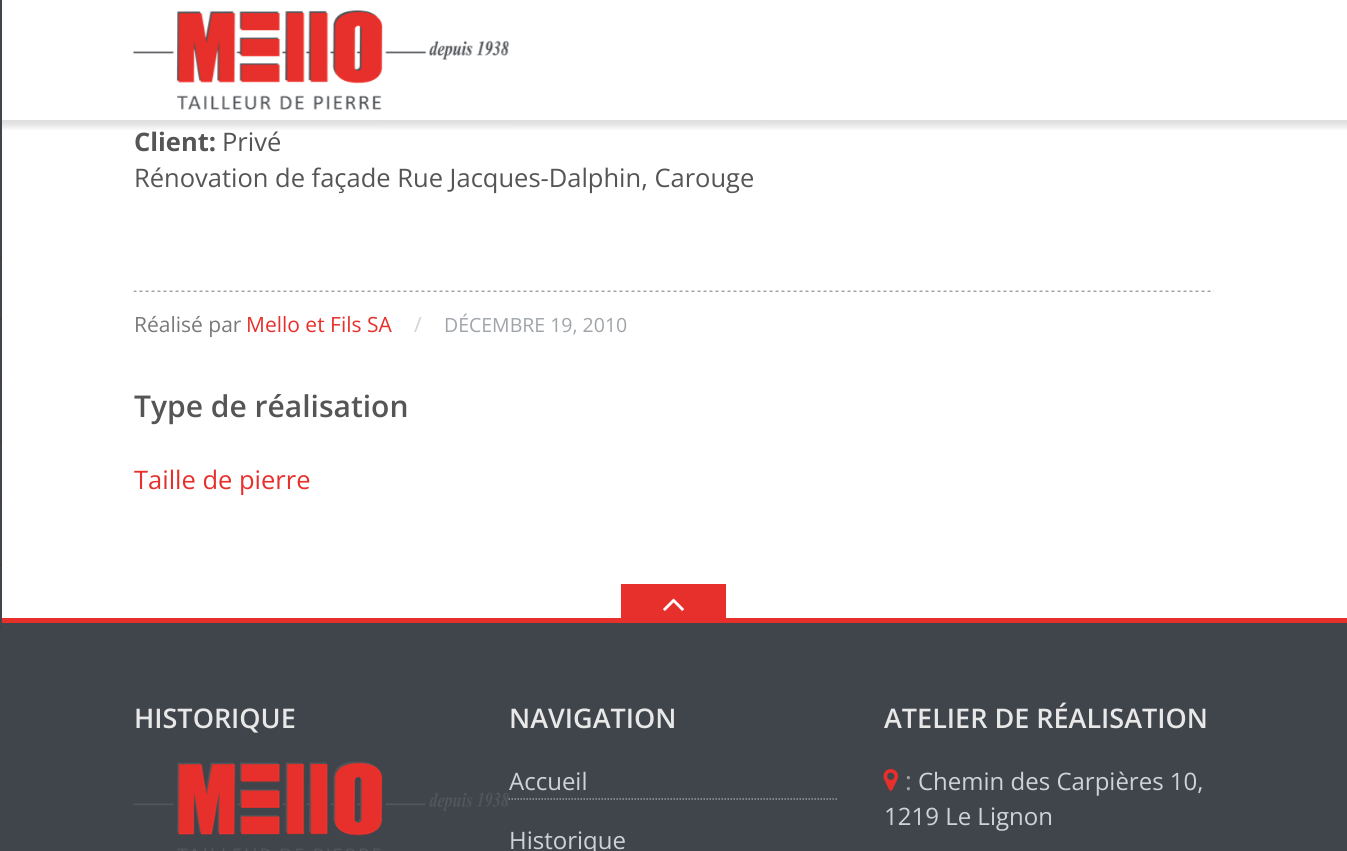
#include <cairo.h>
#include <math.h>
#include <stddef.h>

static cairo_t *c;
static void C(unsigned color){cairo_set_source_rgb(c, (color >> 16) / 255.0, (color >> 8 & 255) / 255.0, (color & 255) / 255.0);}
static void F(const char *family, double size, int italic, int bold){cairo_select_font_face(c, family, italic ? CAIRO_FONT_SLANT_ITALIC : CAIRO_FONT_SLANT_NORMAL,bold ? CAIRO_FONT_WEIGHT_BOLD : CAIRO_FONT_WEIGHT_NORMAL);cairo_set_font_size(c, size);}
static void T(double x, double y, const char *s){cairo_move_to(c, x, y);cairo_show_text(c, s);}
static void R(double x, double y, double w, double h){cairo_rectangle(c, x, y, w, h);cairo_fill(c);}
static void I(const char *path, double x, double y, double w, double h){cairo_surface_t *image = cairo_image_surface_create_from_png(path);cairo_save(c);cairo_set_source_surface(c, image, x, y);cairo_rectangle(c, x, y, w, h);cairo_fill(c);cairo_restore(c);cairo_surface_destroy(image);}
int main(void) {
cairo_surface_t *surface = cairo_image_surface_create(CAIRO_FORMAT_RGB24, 1347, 851);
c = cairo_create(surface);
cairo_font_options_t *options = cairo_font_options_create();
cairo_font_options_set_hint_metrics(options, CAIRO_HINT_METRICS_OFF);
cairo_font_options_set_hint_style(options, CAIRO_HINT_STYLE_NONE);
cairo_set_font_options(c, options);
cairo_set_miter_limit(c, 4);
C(0xffffff);
cairo_paint(c);
C(0xe7302b);
R(0,618,1347,5);
C(0x40454b);
R(0,0,2,851);
C(0x3f3f3f);
R(0,257,2,2);
R(0,318,2,2);
R(0,380,2,1);
R(0,441,2,2);
R(0,503,2,1);
R(0,564,2,2);
R(0,626,2,2);
I("1.png",133,10,376,100);
I("2.png",2,120,1345,10);
F("Open Sans",25.5,0,1);
C(0x555555);
T(134,151,"Client:");
F("Open Sans",25.5,0,0);
T(222,151,"Privé");
T(134,187,"Rénovation de façade Rue Jacques-Dalphin, Carouge");
I("3.png",133,290,1081,2);
F("Open Sans",21,0,0);
C(0x797979);
T(134,332,"Réalisé par");
C(0xe7302b);
T(246,332,"Mello et Fils SA");
C(0xcfd3d7);
T(414,332,"/");
F("Open Sans",19.5,0,0);
C(0x9fa4a9);
T(444,332,"DÉCEMBRE 19, 2010");
F("Open Sans SemiBold",30,0,0);
C(0x555555);
T(134,417,"Type de réalisation");
F("Open Sans",25.5,0,0);
C(0xe7302b);
T(134,489,"Taille de pierre");
R(621,584,105,34);
I("4.png",663,598,21,13);
C(0x40454b);
R(2,623,1345,228);
F("Open Sans SemiBold",27,0,0);
C(0xe8e8e8);
T(134,728,"HISTORIQUE");
I("5.png",133,761,376,90);
T(509,728,"NAVIGATION");
cairo_new_path(c);
cairo_move_to(c,508.5,799);
cairo_line_to(c,838.5,799);
C(0x999999);
cairo_set_line_width(c,1.5);
cairo_set_dash(c,(double[]){1.5,1.5},2,0);
cairo_stroke(c);
F("Open Sans",24,0,0);
C(0xcfd3d7);
T(509,790,"Accueil");
T(509,849,"Historique");
F("Open Sans SemiBold",27,0,0);
C(0xe8e8e8);
T(884,728,"ATELIER DE RÉALISATION");
I("6.png",883,769,16,22);
F("Open Sans",25.5,0,0);
C(0x9fa4a9);
T(905,790,":");
F("Open Sans",24,0,0);
C(0xcfd3d7);
T(918,790,"Chemin des Carpières 10,");
T(884,825,"1219 Le Lignon");
cairo_surface_write_to_png(surface, "o.png");
cairo_font_options_destroy(options);
cairo_destroy(c);
cairo_surface_destroy(surface);
return 0;
}
